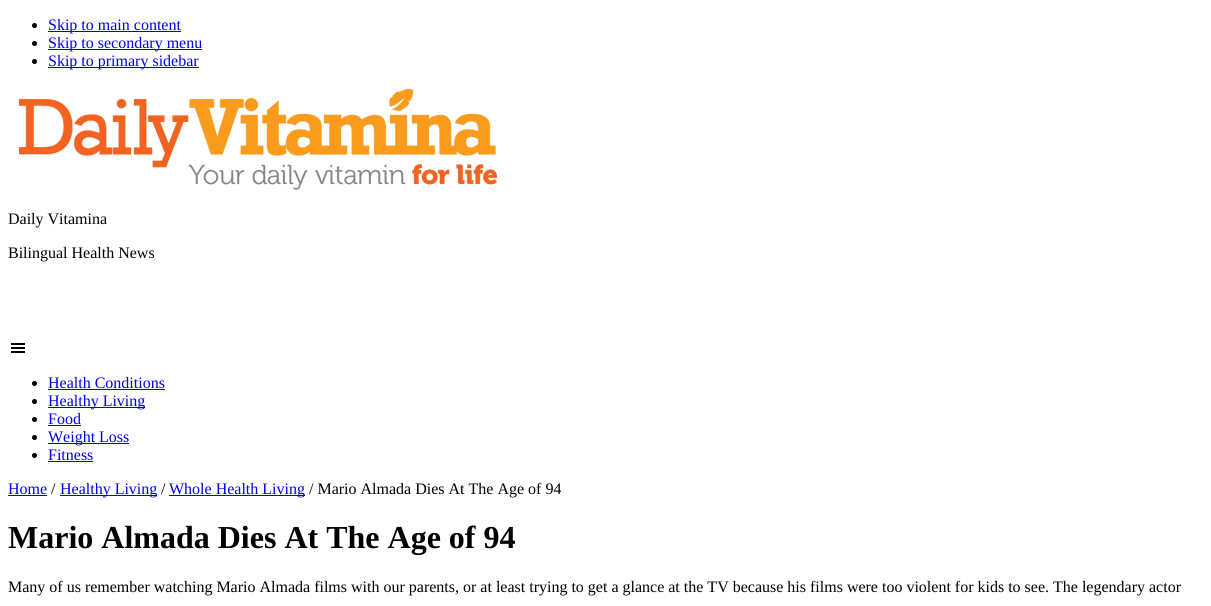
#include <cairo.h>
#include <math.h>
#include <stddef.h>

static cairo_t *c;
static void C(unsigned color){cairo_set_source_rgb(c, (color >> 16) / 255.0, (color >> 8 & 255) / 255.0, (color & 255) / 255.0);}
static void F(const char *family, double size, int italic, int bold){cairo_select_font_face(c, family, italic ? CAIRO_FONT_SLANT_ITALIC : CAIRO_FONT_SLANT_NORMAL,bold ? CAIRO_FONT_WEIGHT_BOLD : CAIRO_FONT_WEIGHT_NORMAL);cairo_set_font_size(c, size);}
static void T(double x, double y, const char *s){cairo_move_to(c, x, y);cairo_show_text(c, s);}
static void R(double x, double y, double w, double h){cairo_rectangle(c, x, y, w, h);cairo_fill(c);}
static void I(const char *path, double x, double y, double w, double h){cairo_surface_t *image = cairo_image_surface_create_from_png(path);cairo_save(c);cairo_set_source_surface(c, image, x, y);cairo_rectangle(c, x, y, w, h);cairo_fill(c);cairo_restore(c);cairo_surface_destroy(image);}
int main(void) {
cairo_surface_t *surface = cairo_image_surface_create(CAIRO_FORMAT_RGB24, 1211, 606);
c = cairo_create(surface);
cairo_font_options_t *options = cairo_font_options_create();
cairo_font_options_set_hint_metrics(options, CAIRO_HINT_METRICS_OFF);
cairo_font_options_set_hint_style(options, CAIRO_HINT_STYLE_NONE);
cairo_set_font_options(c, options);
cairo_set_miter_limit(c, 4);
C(0xffffff);
cairo_paint(c);
C(0x000000);
cairo_arc(c,34.5,25.5,2.5,0,2 * M_PI);
cairo_fill(c);
C(0x0000ee);
R(48,31,133,1);
F("Liberation Serif",16,0,0);
T(48,30,"Skip to main content");
C(0x000000);
cairo_new_path(c);
cairo_arc(c,34.5,43.5,2.5,0,2 * M_PI);
cairo_fill(c);
C(0x0000ee);
R(48,49,154,1);
T(48,48,"Skip to secondary menu");
C(0x000000);
cairo_new_path(c);
cairo_arc(c,34.5,61.5,2.5,0,2 * M_PI);
cairo_fill(c);
C(0x0000ee);
R(48,67,151,1);
T(48,66,"Skip to primary sidebar");
I("1.png",19,89,478,101);
C(0x000000);
T(8,224,"Daily Vitamina");
T(8,258,"Bilingual Health News");
I("2.png",11,343,14,10);
cairo_arc(c,34.5,383.5,2.5,0,2 * M_PI);
cairo_fill(c);
C(0x0000ee);
T(48,388,"Health Conditions");
R(48,389,117,1);
C(0x000000);
cairo_new_path(c);
cairo_arc(c,34.5,401.5,2.5,0,2 * M_PI);
cairo_fill(c);
C(0x0000ee);
R(48,407,97,1);
T(48,406,"Healthy Living");
C(0x000000);
cairo_new_path(c);
cairo_arc(c,34.5,419.5,2.5,0,2 * M_PI);
cairo_fill(c);
C(0x0000ee);
T(48,424,"Food");
R(48,425,33,1);
C(0x000000);
cairo_new_path(c);
cairo_arc(c,34.5,437.5,2.5,0,2 * M_PI);
cairo_fill(c);
C(0x0000ee);
R(48,443,81,1);
T(48,442,"Weight Loss");
C(0x000000);
cairo_new_path(c);
cairo_arc(c,34.5,455.5,2.5,0,2 * M_PI);
cairo_fill(c);
C(0x0000ee);
T(48,460,"Fitness");
R(48,461,45,1);
T(8,494,"Home");
R(8,495,39,1);
C(0x000000);
T(51,494,"/");
C(0x0000ee);
R(60,495,97,1);
T(60,494,"Healthy Living");
C(0x000000);
T(161,494,"/");
C(0x0000ee);
R(169,495,136,1);
T(169,494,"Whole Health Living");
C(0x000000);
T(309,494,"/ Mario Almada Dies At The Age of 94");
F("Liberation Serif",32,0,1);
T(8,548,"Mario Almada Dies At The Age of 94");
F("Liberation Serif",16,0,0);
T(8,592,"Many of us remember watching Mario Almada films with our parents, or at least trying to get a glance at the TV because his films were too violent for kids to see. The legendary actor");
cairo_surface_write_to_png(surface, "o.png");
cairo_font_options_destroy(options);
cairo_destroy(c);
cairo_surface_destroy(surface);
return 0;
}
